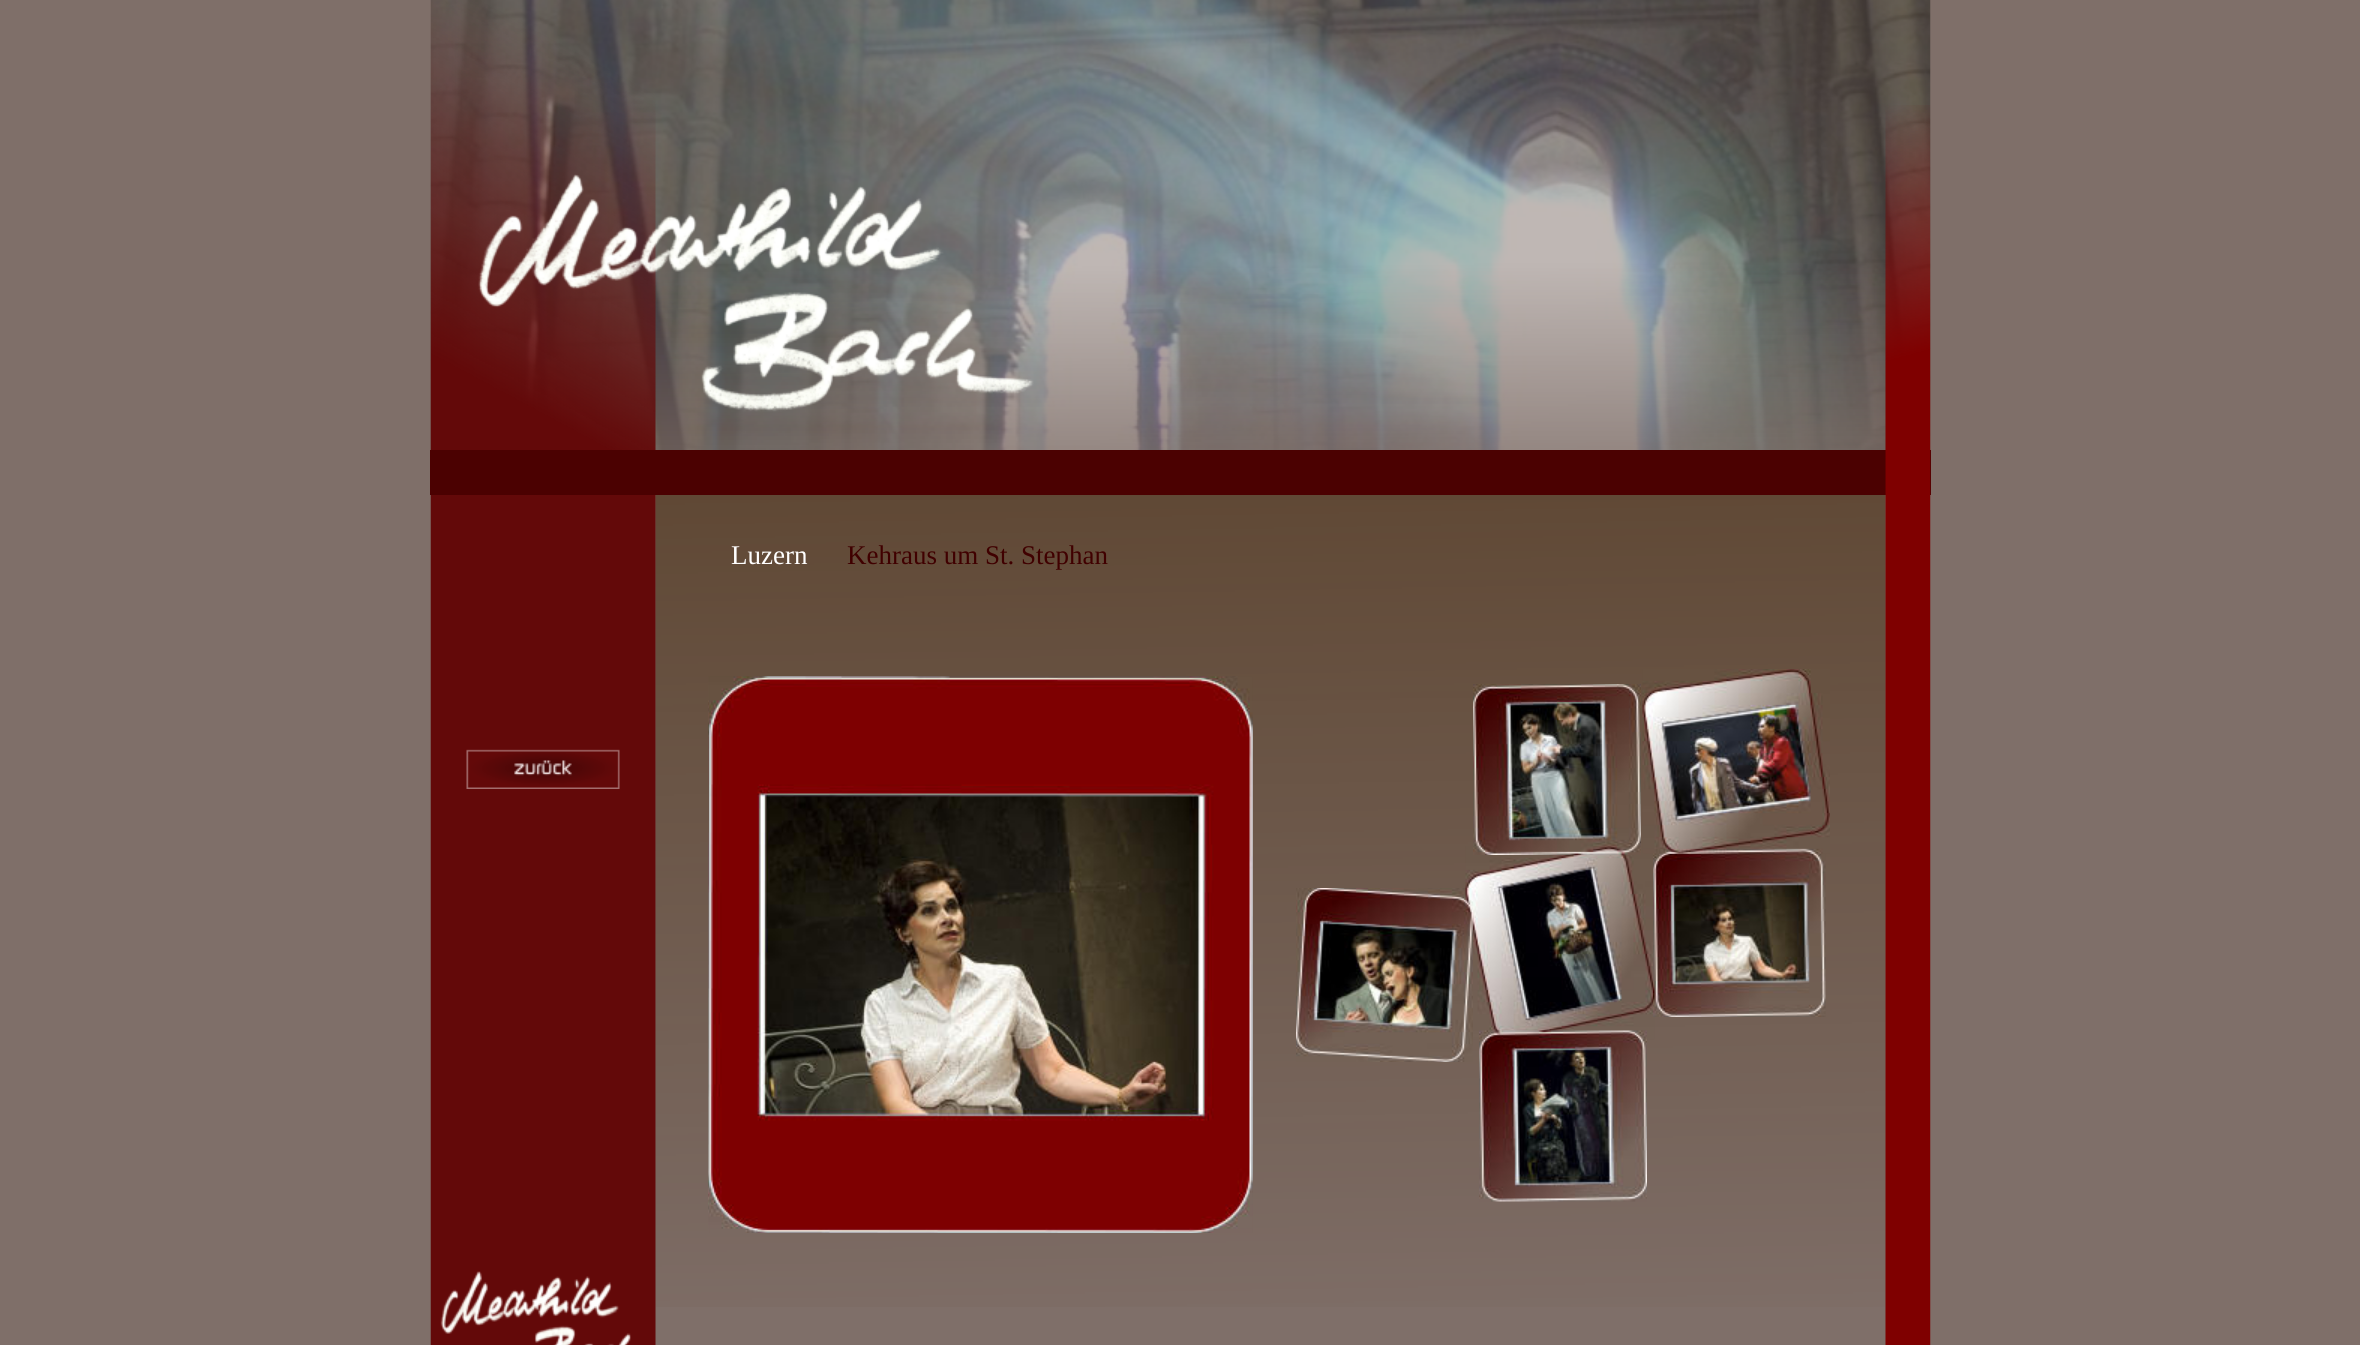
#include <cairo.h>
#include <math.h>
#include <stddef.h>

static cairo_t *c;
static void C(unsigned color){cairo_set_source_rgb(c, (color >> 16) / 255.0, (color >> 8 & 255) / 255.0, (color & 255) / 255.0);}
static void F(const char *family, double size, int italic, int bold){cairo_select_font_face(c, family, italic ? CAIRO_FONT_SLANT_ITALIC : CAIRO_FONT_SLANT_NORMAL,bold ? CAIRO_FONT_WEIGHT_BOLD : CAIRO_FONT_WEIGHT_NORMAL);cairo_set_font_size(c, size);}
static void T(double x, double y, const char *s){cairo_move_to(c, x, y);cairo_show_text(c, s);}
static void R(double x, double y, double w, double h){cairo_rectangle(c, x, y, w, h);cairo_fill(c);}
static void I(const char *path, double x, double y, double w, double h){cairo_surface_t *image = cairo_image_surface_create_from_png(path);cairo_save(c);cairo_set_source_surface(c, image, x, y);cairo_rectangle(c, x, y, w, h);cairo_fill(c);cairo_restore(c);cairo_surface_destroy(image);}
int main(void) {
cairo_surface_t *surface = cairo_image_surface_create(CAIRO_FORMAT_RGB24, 2360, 1345);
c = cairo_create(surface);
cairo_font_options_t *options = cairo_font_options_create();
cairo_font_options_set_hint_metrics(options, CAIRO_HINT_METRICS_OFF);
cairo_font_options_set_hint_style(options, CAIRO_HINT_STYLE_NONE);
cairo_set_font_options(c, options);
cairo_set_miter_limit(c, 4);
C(0x7f6f69);
cairo_paint(c);
I("1.png",430,0,1501,450);
I("5.png",655,495,1231,812);
I("2.png",430,0,226,1345);
C(0x4b0101);
R(430,450,1501,45);
I("3.png",1885,105,46,1240);
I("4.png",478,174,556,238);
F("Liberation Serif",27,0,0);
C(0xffffff);
T(731,564,"Luzern");
C(0x400000);
T(847,564,"Kehraus um St. Stephan");
I("6.png",708,676,545,557);
I("13.png",1465,846,190,194);
I("14.png",1653,853,173,164);
I("7.png",1642,669,188,185);
I("8.png",709,676,544,557);
I("9.png",466,749,154,40);
I("10.png",709,676,544,557);
I("11.png",1473,684,168,171);
I("12.png",1296,888,177,174);
I("15.png",1479,1030,168,172);
I("16.png",440,1271,191,74);
cairo_surface_write_to_png(surface, "o.png");
cairo_font_options_destroy(options);
cairo_destroy(c);
cairo_surface_destroy(surface);
return 0;
}
